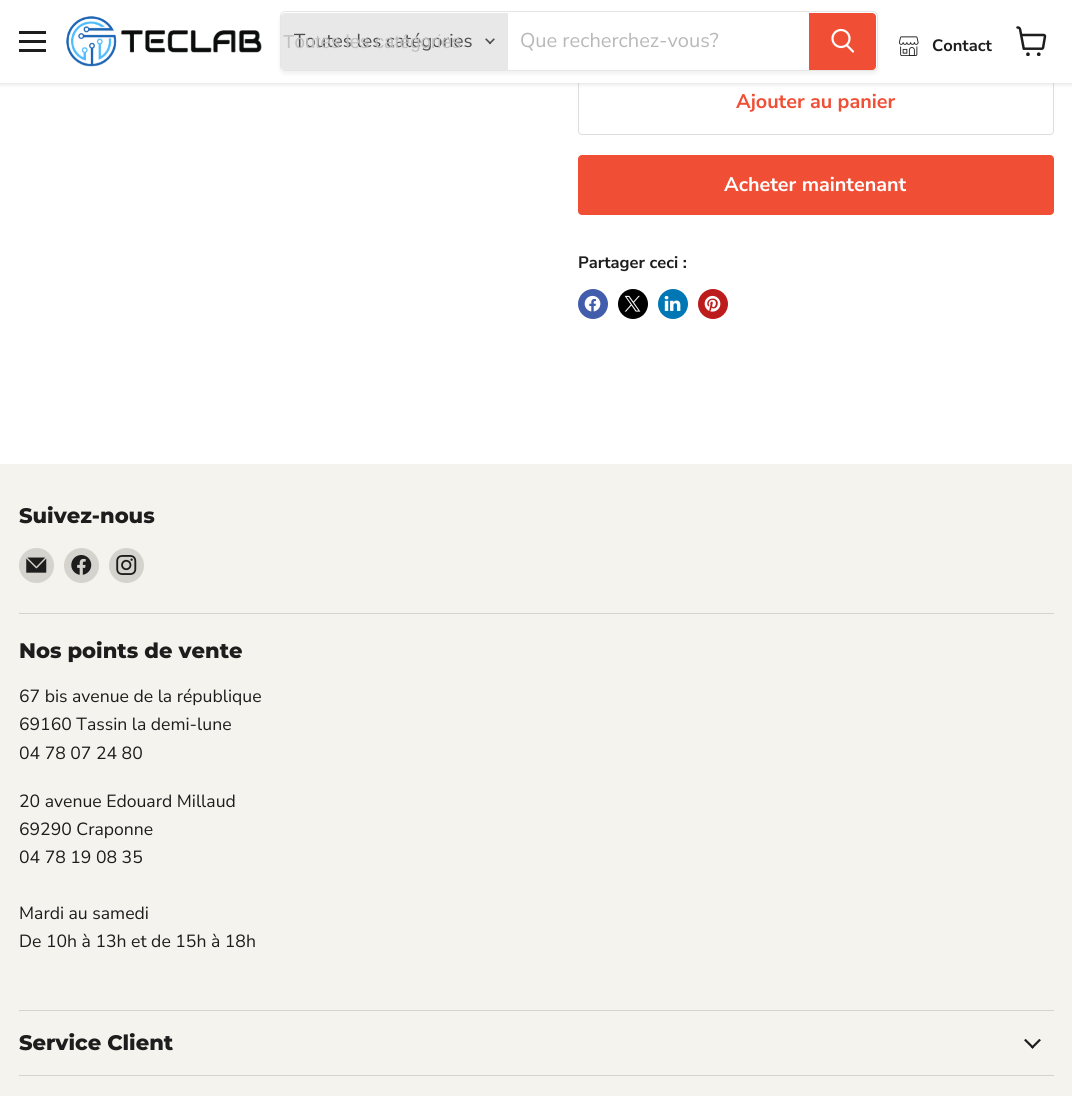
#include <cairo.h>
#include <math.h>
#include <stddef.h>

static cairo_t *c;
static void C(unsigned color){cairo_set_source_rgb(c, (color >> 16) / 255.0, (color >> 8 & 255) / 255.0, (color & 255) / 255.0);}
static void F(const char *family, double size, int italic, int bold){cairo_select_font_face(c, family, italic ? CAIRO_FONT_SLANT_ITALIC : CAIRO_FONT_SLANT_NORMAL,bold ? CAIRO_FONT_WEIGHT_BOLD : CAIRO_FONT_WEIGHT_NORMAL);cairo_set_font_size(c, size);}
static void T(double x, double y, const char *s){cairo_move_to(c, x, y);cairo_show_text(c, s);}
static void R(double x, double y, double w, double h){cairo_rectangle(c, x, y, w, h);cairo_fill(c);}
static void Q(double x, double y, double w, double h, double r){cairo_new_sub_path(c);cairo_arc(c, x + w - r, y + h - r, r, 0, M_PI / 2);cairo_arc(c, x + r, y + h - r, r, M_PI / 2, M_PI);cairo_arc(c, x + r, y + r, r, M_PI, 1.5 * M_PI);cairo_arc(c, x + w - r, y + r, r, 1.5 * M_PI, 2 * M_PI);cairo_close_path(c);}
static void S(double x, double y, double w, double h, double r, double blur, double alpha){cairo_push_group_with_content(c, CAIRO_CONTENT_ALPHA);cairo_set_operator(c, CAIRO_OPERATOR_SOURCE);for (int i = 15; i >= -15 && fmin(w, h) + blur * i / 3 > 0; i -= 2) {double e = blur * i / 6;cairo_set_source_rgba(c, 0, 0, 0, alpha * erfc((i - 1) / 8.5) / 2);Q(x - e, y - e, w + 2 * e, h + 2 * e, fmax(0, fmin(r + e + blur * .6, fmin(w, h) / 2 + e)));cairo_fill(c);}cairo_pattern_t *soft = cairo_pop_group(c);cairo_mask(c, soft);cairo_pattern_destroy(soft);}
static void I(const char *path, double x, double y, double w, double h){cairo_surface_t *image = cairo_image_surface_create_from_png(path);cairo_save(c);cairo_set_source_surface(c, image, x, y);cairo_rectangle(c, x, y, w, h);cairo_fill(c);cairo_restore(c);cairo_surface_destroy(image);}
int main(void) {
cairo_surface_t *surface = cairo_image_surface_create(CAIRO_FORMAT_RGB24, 1072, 1096);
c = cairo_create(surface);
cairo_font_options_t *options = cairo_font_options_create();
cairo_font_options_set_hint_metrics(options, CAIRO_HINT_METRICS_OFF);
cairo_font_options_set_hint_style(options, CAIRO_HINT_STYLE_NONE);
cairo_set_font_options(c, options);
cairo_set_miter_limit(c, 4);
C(0xffffff);
cairo_paint(c);
Q(578.5,70.5,475,64,3.5);
C(0xdddddd);
cairo_set_line_width(c,1);
cairo_stroke(c);
C(0x808080);
S(0,1,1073,83,0,2.5,.25);
C(0xffffff);
R(0,0,1072,83);
C(0x1d1d1d);
R(19,31,27,3);
R(19,40,27,3);
R(19,49,27,3);
I("1.png",66,16,196,51);
cairo_save(c);
cairo_set_fill_rule(c,CAIRO_FILL_RULE_EVEN_ODD);
cairo_new_path(c);
cairo_move_to(c,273,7);
cairo_line_to(c,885,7);
cairo_line_to(c,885,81);
cairo_line_to(c,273,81);
cairo_close_path(c);
cairo_move_to(c,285,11);
cairo_line_to(c,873,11);
cairo_curve_to(c,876,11,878,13,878,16);
cairo_line_to(c,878,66);
cairo_curve_to(c,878,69,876,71,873,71);
cairo_line_to(c,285,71);
cairo_curve_to(c,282,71,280,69,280,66);
cairo_line_to(c,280,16);
cairo_curve_to(c,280,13,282,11,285,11);
cairo_close_path(c);
cairo_clip(c);
C(0x808080);
S(280,14,598,60,5,2,.11);
cairo_restore(c);
Q(280.5,11.5,597,59,4.5);
cairo_set_source_rgba(c,0.502,0.502,0.502,0.2);
cairo_stroke(c);
C(0xe8e8e8);
cairo_new_path(c);
cairo_move_to(c,285,13);
cairo_line_to(c,508,13);
cairo_line_to(c,508,70);
cairo_line_to(c,285,70);
cairo_curve_to(c,283,70,281,68,281,66);
cairo_line_to(c,281,17);
cairo_curve_to(c,281,15,283,13,285,13);
cairo_close_path(c);
cairo_fill(c);
F("Nunito Sans",18.75,0,0);
C(0x4d4d4d);
T(294,47,"Toutes les catégories");
F("Liberation Sans",18.75,0,0);
C(0xc0c0c0);
T(283,48,"Toutes les catégories");
I("2.png",485,38,10,7);
F("Nunito Sans",20,0,0);
C(0xb8b8b8);
T(520,47,"Que recherchez-vous?");
C(0xf04f36);
cairo_new_path(c);
cairo_move_to(c,809.5,13.5);
cairo_line_to(c,872,13.5);
cairo_curve_to(c,874,13.5,875.5,15,875.5,17);
cairo_line_to(c,875.5,66);
cairo_curve_to(c,875.5,68,874,69.5,872,69.5);
cairo_line_to(c,809.5,69.5);
cairo_close_path(c);
cairo_fill_preserve(c);
cairo_stroke(c);
cairo_new_path(c);
cairo_move_to(c,853,51.5);
cairo_line_to(c,847,45.5);
C(0xffffff);
cairo_set_line_width(c,2.2);
cairo_set_line_cap(c,CAIRO_LINE_CAP_ROUND);
cairo_stroke(c);
cairo_arc(c,841,38.5,8.5,0,2 * M_PI);
cairo_set_line_cap(c,CAIRO_LINE_CAP_BUTT);
cairo_stroke(c);
I("3.png",899,36,20,20);
F("Nunito Sans",16.5,0,1);
C(0x1d1d1d);
T(932,51,"Contact");
I("4.png",1016,26,31,30);
F("Nunito Sans",19.75,0,1);
C(0xf04f36);
T(736,108,"Ajouter au panier");
Q(578.5,155.5,475,59,3.5);
cairo_fill_preserve(c);
cairo_set_line_width(c,1);
cairo_stroke(c);
C(0xffffff);
T(724,191,"Acheter maintenant");
F("Nunito Sans",16.5,0,1);
C(0x1d1d1d);
T(578,268,"Partager ceci :");
C(0x425dab);
cairo_new_path(c);
cairo_arc(c,593,304,15,0,2 * M_PI);
cairo_fill(c);
I("5.png",584,295,17,17);
C(0x000000);
cairo_arc(c,633,304,15,0,2 * M_PI);
cairo_fill(c);
I("6.png",624,295,17,17);
C(0x0077b5);
cairo_arc(c,673,304,15,0,2 * M_PI);
cairo_fill(c);
I("7.png",664,295,17,16);
C(0xbd1c1c);
cairo_arc(c,713,304,15,0,2 * M_PI);
cairo_fill(c);
I("8.png",704,295,17,17);
C(0xf5f3ed);
R(0,464,1072,632);
C(0xd5d3ce);
R(19,613,1035,1);
F("Montserrat ExtraBold",21,0,0);
C(0x1d1d1d);
T(19,523,"Suivez-nous");
C(0xd5d3ce);
cairo_new_path(c);
cairo_arc(c,36.5,565.5,17.5,0,2 * M_PI);
cairo_fill(c);
I("9.png",26,557,21,16);
cairo_arc(c,81.5,565.5,17.5,0,2 * M_PI);
cairo_fill(c);
I("10.png",71,555,21,20);
cairo_arc(c,126.5,565.5,17.5,0,2 * M_PI);
cairo_fill(c);
I("11.png",116,555,21,20);
R(19,1010,1035,1);
C(0x1d1d1d);
T(19,658,"Nos points de vente");
F("Nunito Sans",17.6,0,0);
T(19,702,"67 bis avenue de la république");
T(19,730,"69160 Tassin la demi-lune");
T(19,759,"04 78 07 24 80");
T(19,807,"20 avenue Edouard Millaud");
T(19,835,"69290 Craponne");
T(19,863,"04 78 19 08 35");
T(19,919,"Mardi au samedi");
T(19,947,"De 10h à 13h et de 15h à 18h");
C(0xd5d3ce);
R(19,1075,1035,1);
F("Montserrat ExtraBold",21,0,0);
C(0x1d1d1d);
T(19,1050,"Service Client");
I("12.png",1024,1039,17,10);
cairo_surface_write_to_png(surface, "o.png");
cairo_font_options_destroy(options);
cairo_destroy(c);
cairo_surface_destroy(surface);
return 0;
}
